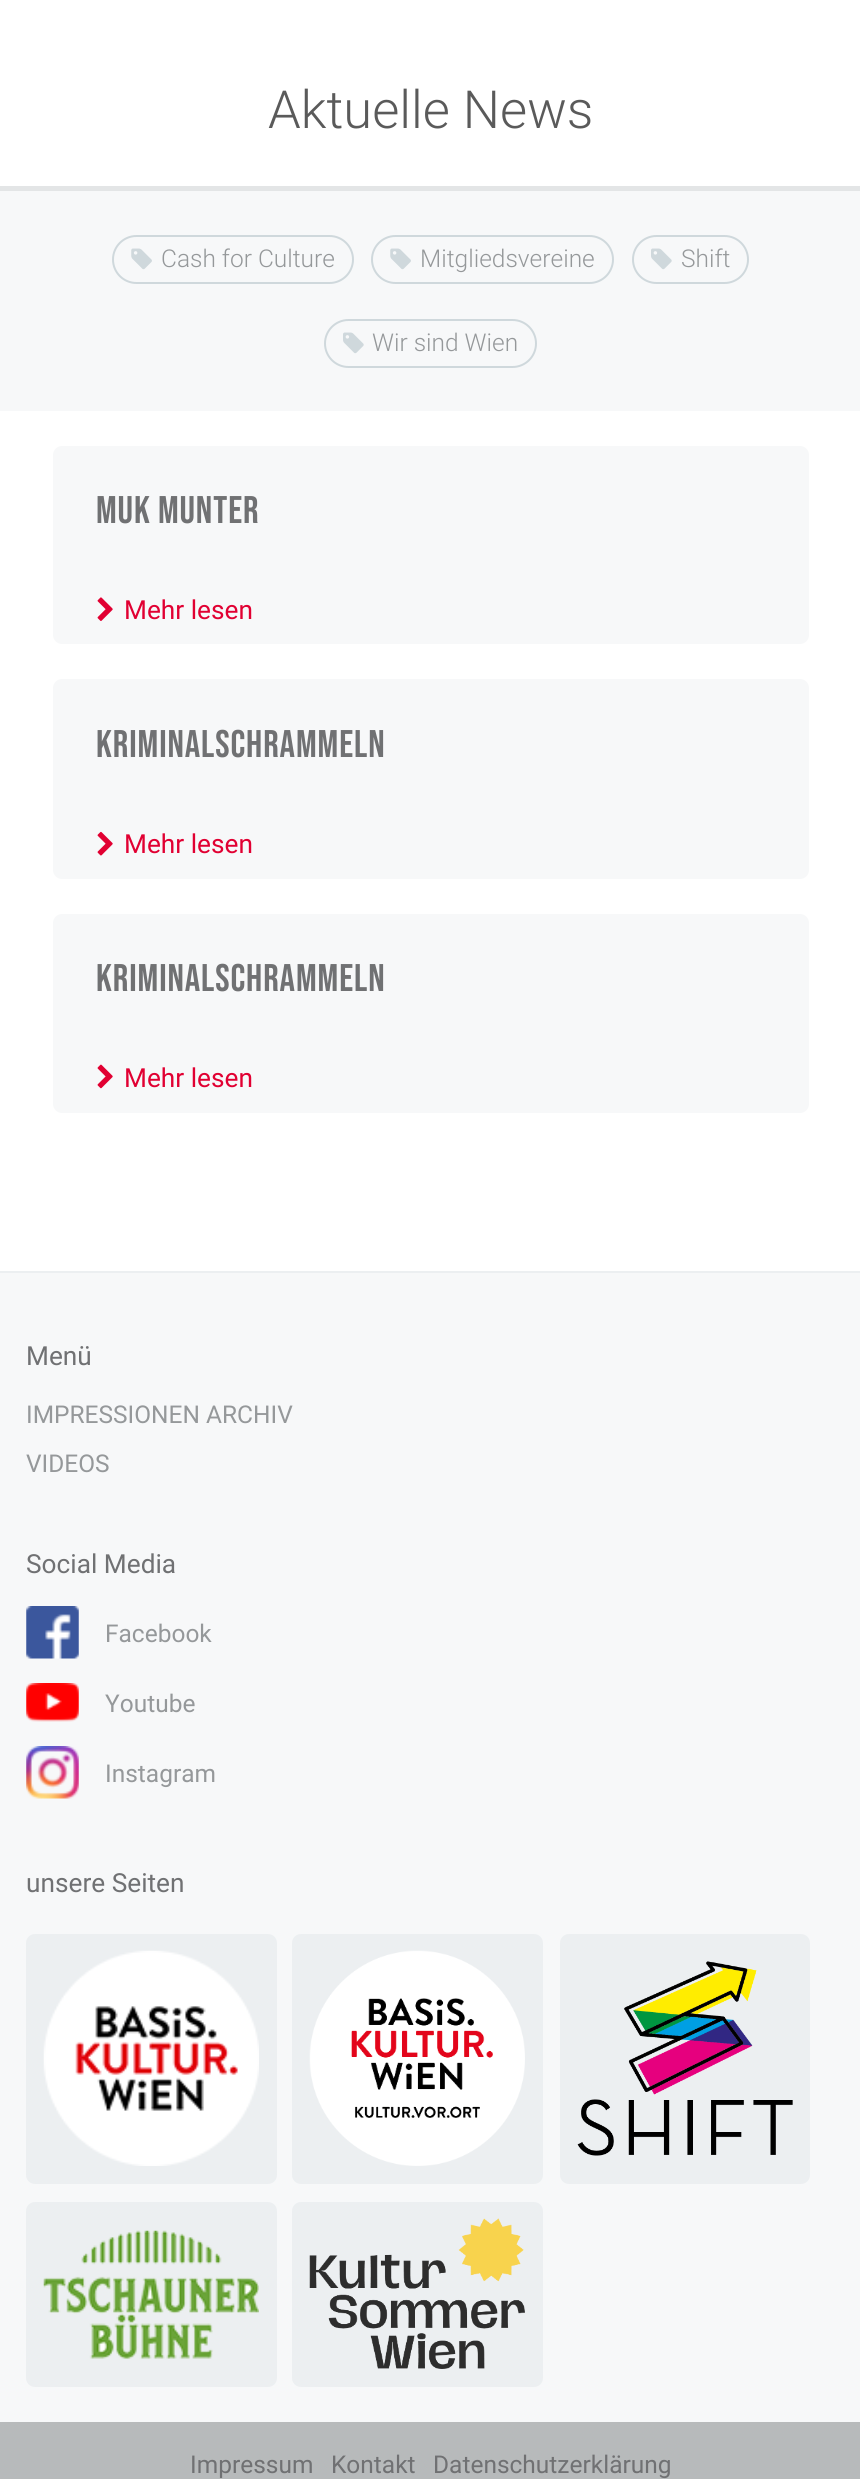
#include <cairo.h>
#include <math.h>
#include <stddef.h>

static cairo_t *c;
static void C(unsigned color){cairo_set_source_rgb(c, (color >> 16) / 255.0, (color >> 8 & 255) / 255.0, (color & 255) / 255.0);}
static void F(const char *family, double size, int italic, int bold){cairo_select_font_face(c, family, italic ? CAIRO_FONT_SLANT_ITALIC : CAIRO_FONT_SLANT_NORMAL,bold ? CAIRO_FONT_WEIGHT_BOLD : CAIRO_FONT_WEIGHT_NORMAL);cairo_set_font_size(c, size);}
static void T(double x, double y, const char *s){cairo_move_to(c, x, y);cairo_show_text(c, s);}
static void L(double x, double y, const char *s, double letter, double word){cairo_move_to(c, x, y);while (*s) {char ch[5] = {0};int n = 0;do ch[n++] = *s++; while ((*s & 0xC0) == 0x80);cairo_show_text(c, ch);cairo_rel_move_to(c, letter + word * (*ch == ' '), 0);}}
static void R(double x, double y, double w, double h){cairo_rectangle(c, x, y, w, h);cairo_fill(c);}
static void Q(double x, double y, double w, double h, double r){cairo_new_sub_path(c);cairo_arc(c, x + w - r, y + h - r, r, 0, M_PI / 2);cairo_arc(c, x + r, y + h - r, r, M_PI / 2, M_PI);cairo_arc(c, x + r, y + r, r, M_PI, 1.5 * M_PI);cairo_arc(c, x + w - r, y + r, r, 1.5 * M_PI, 2 * M_PI);cairo_close_path(c);}
static void I(const char *path, double x, double y, double w, double h){cairo_surface_t *image = cairo_image_surface_create_from_png(path);cairo_save(c);cairo_set_source_surface(c, image, x, y);cairo_rectangle(c, x, y, w, h);cairo_fill(c);cairo_restore(c);cairo_surface_destroy(image);}
int main(void) {
cairo_surface_t *surface = cairo_image_surface_create(CAIRO_FORMAT_RGB24, 860, 2479);
c = cairo_create(surface);
cairo_font_options_t *options = cairo_font_options_create();
cairo_font_options_set_hint_metrics(options, CAIRO_HINT_METRICS_OFF);
cairo_font_options_set_hint_style(options, CAIRO_HINT_STYLE_NONE);
cairo_set_font_options(c, options);
cairo_set_miter_limit(c, 4);
C(0xffffff);
cairo_paint(c);
F("Roboto Light",52.5,0,0);
C(0x5a5a5a);
T(268,128,"Aktuelle News");
C(0xf7f8f9);
R(0,191,860,220);
C(0xe3e5e6);
R(0,186,860,5);
Q(113,236,240,47,23.5);
C(0xcfd8dc);
cairo_stroke(c);
I("1.png",131,248,21,22);
F("Roboto Light",24.5,0,0);
C(0x95989a);
T(161,267,"Cash for Culture");
Q(372,236,241,47,23.5);
C(0xcfd8dc);
cairo_stroke(c);
I("1.png",390,248,21,22);
C(0x95989a);
T(420,267,"Mitgliedsvereine");
Q(633,236,115,47,23.5);
C(0xcfd8dc);
cairo_stroke(c);
I("2.png",651,248,21,22);
C(0x95989a);
T(681,267,"Shift");
Q(325,320,211,47,23.5);
C(0xcfd8dc);
cairo_stroke(c);
I("2.png",343,332,21,22);
C(0x95989a);
T(372,351,"Wir sind Wien");
C(0xf7f8f9);
Q(53,446,756,198,9);
cairo_fill(c);
F("Bebas Neue",38.5,0,0);
C(0x707173);
L(96,523,"MUK MUNTER",.9,0);
I("3.png",97,597,16,24);
F("Roboto",26.25,0,0);
C(0xe10032);
T(124,619,"Mehr lesen");
C(0xf7f8f9);
Q(53,679,756,200,9);
cairo_fill(c);
F("Bebas Neue",38.5,0,0);
C(0x707173);
L(96,757,"KRIMINALSCHRAMMELN",.9,0);
I("4.png",97,831,16,25);
F("Roboto",26.25,0,0);
C(0xe10032);
T(124,853,"Mehr lesen");
C(0xf7f8f9);
Q(53,914,756,199,9);
cairo_fill(c);
F("Bebas Neue",38.5,0,0);
C(0x707173);
L(96,991,"KRIMINALSCHRAMMELN",.9,0);
I("5.png",97,1064,16,25);
F("Roboto",26.25,0,0);
C(0xe10032);
T(124,1087,"Mehr lesen");
C(0xf7f8f9);
R(0,1273,860,1149);
C(0xeceff1);
R(0,1271,860,2);
C(0x707173);
T(26,1365,"Menü");
F("Roboto",24.5,0,0);
C(0x95989a);
T(26,1423,"IMPRESSIONEN ARCHIV");
T(26,1472,"VIDEOS");
F("Roboto",26.25,0,0);
C(0x707173);
T(26,1573,"Social Media");
I("6.png",26,1606,53,53);
F("Roboto",24.5,0,0);
C(0x95989a);
T(105,1642,"Facebook");
I("7.png",26,1683,53,39);
T(105,1712,"Youtube");
I("8.png",26,1746,53,53);
T(105,1782,"Instagram");
F("Roboto",26.25,0,0);
C(0x707173);
T(26,1892,"unsere Seiten");
C(0xeceff1);
Q(26,1934,251,250,9);
cairo_fill(c);
I("9.png",43,1950,216,216);
Q(292,1934,251,250,9);
cairo_fill(c);
I("10.png",309,1950,216,216);
Q(560,1934,250,250,9);
cairo_fill(c);
I("11.png",577,1961,216,195);
Q(26,2202,251,185,9);
cairo_fill(c);
I("12.png",43,2230,216,129);
Q(292,2202,251,185,9);
cairo_fill(c);
I("13.png",309,2218,216,151);
C(0xb7babb);
R(0,2422,860,57);
F("Roboto",24.5,0,0);
C(0x707173);
T(190,2473,"Impressum");
T(331,2473,"Kontakt");
T(433,2473,"Datenschutzerklärung");
cairo_surface_write_to_png(surface, "o.png");
cairo_font_options_destroy(options);
cairo_destroy(c);
cairo_surface_destroy(surface);
return 0;
}
